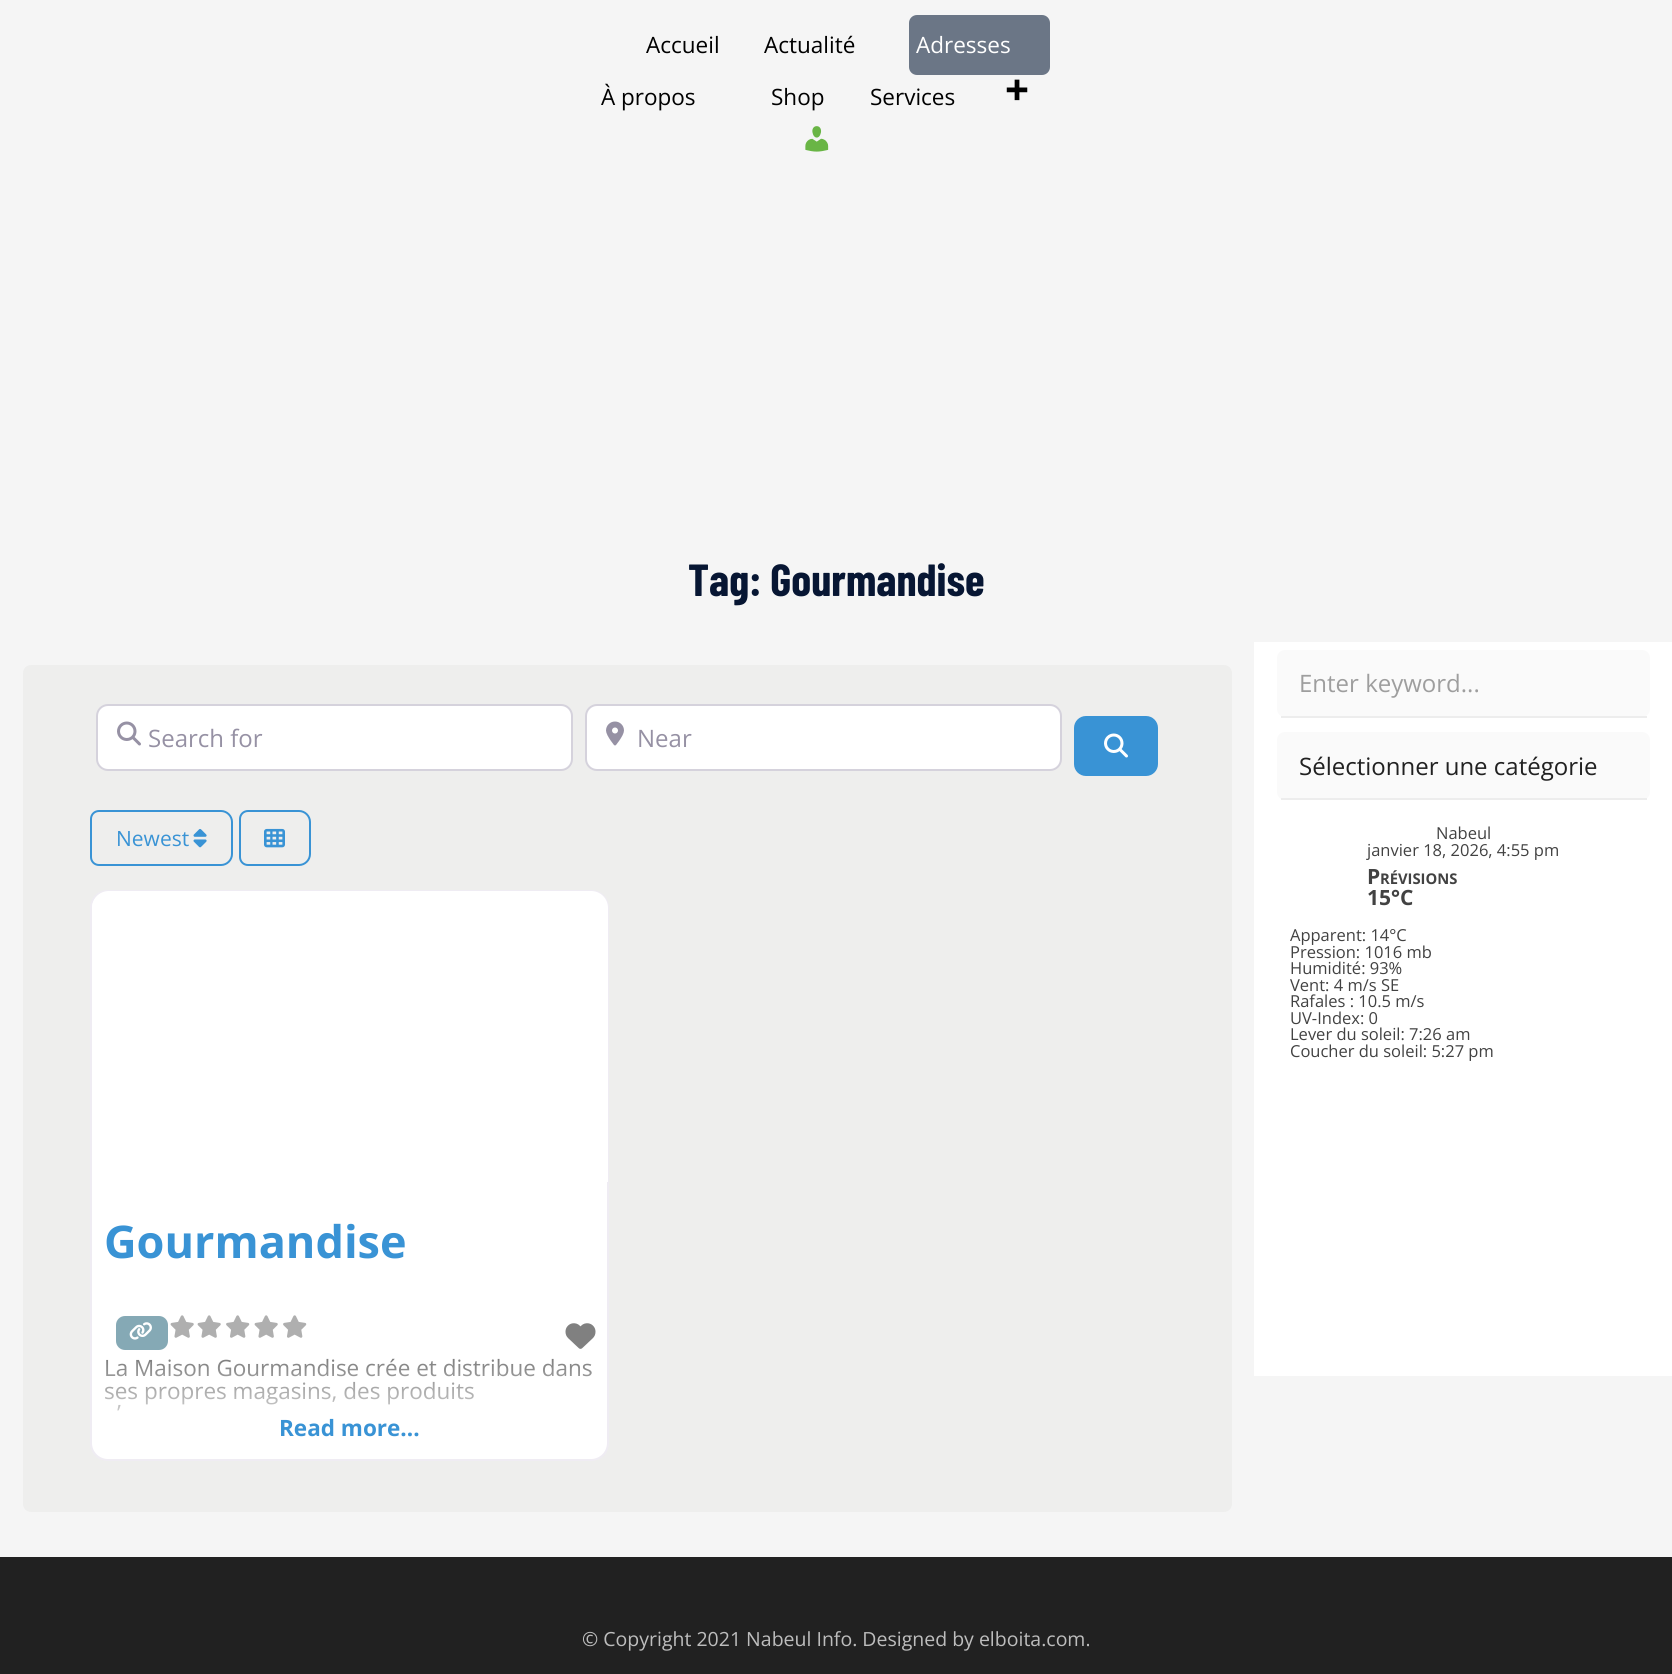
#include <cairo.h>
#include <math.h>
#include <stddef.h>

static cairo_t *c;
static void C(unsigned color){cairo_set_source_rgb(c, (color >> 16) / 255.0, (color >> 8 & 255) / 255.0, (color & 255) / 255.0);}
static void F(const char *family, double size, int italic, int bold){cairo_select_font_face(c, family, italic ? CAIRO_FONT_SLANT_ITALIC : CAIRO_FONT_SLANT_NORMAL,bold ? CAIRO_FONT_WEIGHT_BOLD : CAIRO_FONT_WEIGHT_NORMAL);cairo_set_font_size(c, size);}
static void T(double x, double y, const char *s){cairo_move_to(c, x, y);cairo_show_text(c, s);}
static void R(double x, double y, double w, double h){cairo_rectangle(c, x, y, w, h);cairo_fill(c);}
static void Q(double x, double y, double w, double h, double r){cairo_new_sub_path(c);cairo_arc(c, x + w - r, y + h - r, r, 0, M_PI / 2);cairo_arc(c, x + r, y + h - r, r, M_PI / 2, M_PI);cairo_arc(c, x + r, y + r, r, M_PI, 1.5 * M_PI);cairo_arc(c, x + w - r, y + r, r, 1.5 * M_PI, 2 * M_PI);cairo_close_path(c);}
static void I(const char *path, double x, double y, double w, double h){cairo_surface_t *image = cairo_image_surface_create_from_png(path);cairo_save(c);cairo_set_source_surface(c, image, x, y);cairo_rectangle(c, x, y, w, h);cairo_fill(c);cairo_restore(c);cairo_surface_destroy(image);}
int main(void) {
cairo_surface_t *surface = cairo_image_surface_create(CAIRO_FORMAT_RGB24, 1672, 1674);
c = cairo_create(surface);
cairo_font_options_t *options = cairo_font_options_create();
cairo_font_options_set_hint_metrics(options, CAIRO_HINT_METRICS_OFF);
cairo_font_options_set_hint_style(options, CAIRO_HINT_STYLE_NONE);
cairo_set_font_options(c, options);
cairo_set_miter_limit(c, 4);
cairo_pattern_t *gradient;
C(0xf5f5f5);
cairo_paint(c);
F("Open Sans",22.5,0,0);
C(0x000000);
T(646,53,"Accueil");
T(764,53,"Actualité");
C(0x6b7686);
Q(909,15,141,60,8);
cairo_fill(c);
C(0xffffff);
T(916,53,"Adresses");
C(0x000000);
T(601,105,"À propos");
T(771,105,"Shop");
T(870,105,"Services");
I("1.png",1006,79,22,22);
I("2.png",805,126,24,26);
F("Barlow Condensed",45,0,1);
C(0x071633);
T(688,596,"Tag: Gourmandise");
C(0xeeeeed);
Q(23,665,1209,847,8);
cairo_fill(c);
C(0xffffff);
Q(97,705,475,65,11);
cairo_fill_preserve(c);
C(0xd5d2dc);
cairo_stroke(c);
I("3.png",117,721,24,25);
F("Open Sans",24,0,0);
C(0x9691a4);
T(148,747,"Search for");
C(0xffffff);
Q(586,705,475,65,11);
cairo_fill_preserve(c);
C(0xd5d2dc);
cairo_stroke(c);
I("4.png",606,721,18,25);
C(0x9691a4);
T(637,747,"Near");
C(0x3993d5);
Q(1075,717,82,58,11);
cairo_fill_preserve(c);
cairo_stroke(c);
I("5.png",1104,733,24,25);
cairo_new_path(c);
cairo_move_to(c,99,811);
cairo_line_to(c,221,811);
cairo_curve_to(c,227,811,232,816,232,822);
cairo_line_to(c,232,854);
cairo_curve_to(c,232,860,227,865,221,865);
cairo_line_to(c,99,865);
cairo_curve_to(c,94.5,865,91,861.5,91,857);
cairo_line_to(c,91,819);
cairo_curve_to(c,91,814.5,94.5,811,99,811);
cairo_close_path(c);
cairo_stroke(c);
F("Open Sans",21,0,0);
T(116,846,"Newest");
I("6.png",193,829,14,19);
cairo_new_path(c);
cairo_move_to(c,248,811);
cairo_line_to(c,299,811);
cairo_curve_to(c,305,811,310,816,310,822);
cairo_line_to(c,310,854);
cairo_curve_to(c,310,860,305,865,299,865);
cairo_line_to(c,248,865);
cairo_curve_to(c,243.5,865,240,861.5,240,857);
cairo_line_to(c,240,819);
cairo_curve_to(c,240,814.5,243.5,811,248,811);
cairo_close_path(c);
cairo_stroke(c);
I("7.png",264,828,21,20);
C(0xffffff);
Q(91,891,517,569,17);
cairo_fill_preserve(c);
C(0xefecf3);
cairo_stroke(c);
C(0xffffff);
cairo_new_path(c);
cairo_move_to(c,109,891);
cairo_line_to(c,591,891);
cairo_curve_to(c,600.5,891,608,898.5,608,908);
cairo_line_to(c,608,1182);
cairo_line_to(c,92,1182);
cairo_line_to(c,92,908);
cairo_curve_to(c,92,898.5,99.5,891,109,891);
cairo_close_path(c);
cairo_fill(c);
F("Open Sans",45,0,1);
C(0x3993d5);
T(104,1258,"Gourmandise");
C(0x85a9b5);
Q(116,1316,52,34,9);
cairo_fill(c);
I("8.png",129,1322,23,18);
I("9.png",170,1315,24,23);
I("9.png",197,1315,24,23);
I("10.png",226,1315,24,23);
I("9.png",254,1315,24,23);
I("10.png",283,1315,24,23);
I("11.png",565,1323,31,26);
F("Open Sans",22.5,0,0);
C(0x616161);
T(104,1376,"La Maison Gourmandise crée et distribue dans");
T(104,1399,"ses propres magasins, des produits");
T(117,1421,"’");
gradient = cairo_pattern_create_linear(350,1338,350,1448);
cairo_pattern_add_color_stop_rgba(gradient,0,1,1,1,0);
cairo_pattern_add_color_stop_rgba(gradient,1,1,1,1,1);
cairo_set_source(c,gradient);
cairo_pattern_destroy(gradient);
R(104,1358,487,53);
F("Open Sans",22.5,0,1);
C(0x3993d5);
T(279,1436,"Read more...");
C(0xffffff);
R(1254,642,418,734);
C(0xfafafa);
Q(1277,650,373,67,8);
cairo_fill(c);
C(0xededed);
R(1281,716,366,2);
F("Open Sans",24,0,0);
C(0x9e9e9e);
T(1299,692,"Enter keyword...");
C(0xfafafa);
Q(1277,732,373,68,8);
cairo_fill(c);
C(0xededed);
R(1281,798,366,2);
C(0x212121);
T(1299,775,"Sélectionner une catégorie");
F("Open Sans",16.5,0,0);
C(0x424242);
T(1436,839,"Nabeul");
T(1367,856,"janvier 18, 2026, 4:55 pm");
F("Open Sans",21,0,1);
T(1367,884,"P");
F("Open Sans",14.75,0,1);
T(1380,884,"RÉVISIONS");
F("Open Sans",21,0,1);
T(1367,905,"15°C");
F("Open Sans",16.5,0,0);
T(1290,941,"Apparent: 14°C");
T(1290,958,"Pression: 1016 mb");
T(1290,974,"Humidité: 93%");
T(1290,991,"Vent: 4 m/s SE");
T(1290,1007,"Rafales : 10.5 m/s");
T(1290,1024,"UV-Index: 0");
T(1290,1040,"Lever du soleil: 7:26 am");
T(1290,1057,"Coucher du soleil: 5:27 pm");
C(0x212121);
R(0,1557,1672,117);
F("Open Sans",19.5,0,0);
C(0xbdbdbd);
T(582,1646,"© Copyright 2021 Nabeul Info. Designed by elboita.com.");
cairo_surface_write_to_png(surface, "o.png");
cairo_font_options_destroy(options);
cairo_destroy(c);
cairo_surface_destroy(surface);
return 0;
}
